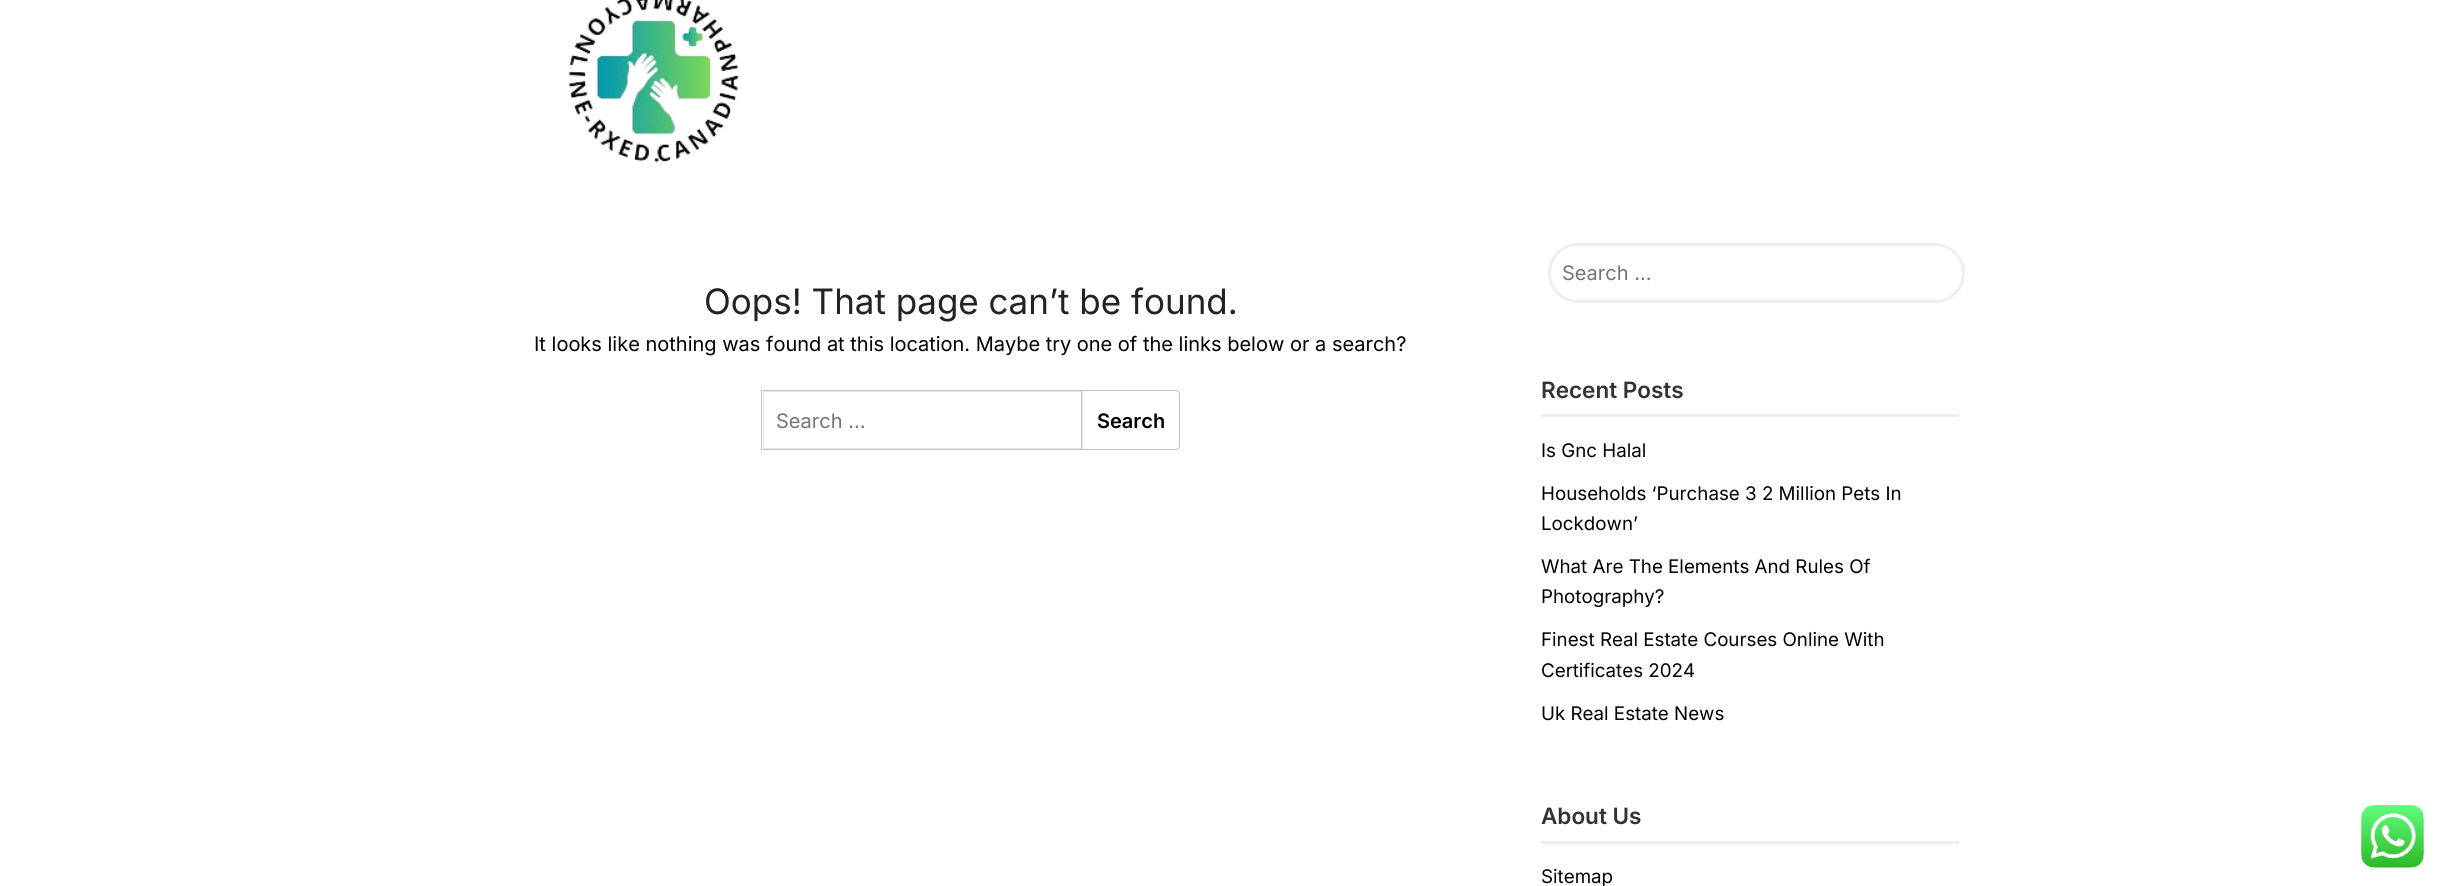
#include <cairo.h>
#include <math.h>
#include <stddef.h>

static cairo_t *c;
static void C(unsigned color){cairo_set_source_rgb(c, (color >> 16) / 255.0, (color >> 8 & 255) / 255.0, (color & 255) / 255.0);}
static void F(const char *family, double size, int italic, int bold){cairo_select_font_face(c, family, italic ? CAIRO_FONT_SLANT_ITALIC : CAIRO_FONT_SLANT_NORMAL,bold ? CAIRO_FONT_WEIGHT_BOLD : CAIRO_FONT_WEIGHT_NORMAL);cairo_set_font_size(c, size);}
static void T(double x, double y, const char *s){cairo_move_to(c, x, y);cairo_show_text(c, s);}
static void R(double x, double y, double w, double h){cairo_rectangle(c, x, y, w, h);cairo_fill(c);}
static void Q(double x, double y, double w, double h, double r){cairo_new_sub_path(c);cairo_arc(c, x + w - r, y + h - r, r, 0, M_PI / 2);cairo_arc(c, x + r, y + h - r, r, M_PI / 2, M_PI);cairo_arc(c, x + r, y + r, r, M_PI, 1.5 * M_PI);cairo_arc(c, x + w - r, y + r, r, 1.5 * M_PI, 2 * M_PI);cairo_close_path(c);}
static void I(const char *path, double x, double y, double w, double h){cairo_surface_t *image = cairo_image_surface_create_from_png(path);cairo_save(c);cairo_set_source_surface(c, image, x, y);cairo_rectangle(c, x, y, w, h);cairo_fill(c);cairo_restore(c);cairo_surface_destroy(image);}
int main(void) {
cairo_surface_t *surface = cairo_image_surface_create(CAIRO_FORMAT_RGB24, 2442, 886);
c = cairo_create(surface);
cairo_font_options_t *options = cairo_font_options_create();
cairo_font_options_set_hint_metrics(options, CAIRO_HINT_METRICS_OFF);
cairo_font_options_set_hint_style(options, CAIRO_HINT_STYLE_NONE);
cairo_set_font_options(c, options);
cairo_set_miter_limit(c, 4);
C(0xffffff);
cairo_paint(c);
I("1.png",568,0,171,163);
F("Inter",35,0,0);
C(0x222222);
T(704,314,"Oops! That page can’t be found.");
F("Inter",20,0,0);
C(0x000000);
T(534,351,"It looks like nothing was found at this location. Maybe try one of the links below or a search?");
C(0xc1c1c1);
R(761,390,322,1);
R(761,449,322,1);
R(761,390,1,60);
cairo_rectangle(c,763.5,391.5,319,57);
C(0xe5e6e9);
cairo_set_line_width(c,1);
cairo_stroke(c);
C(0x757575);
T(776,428,"Search …");
cairo_new_path(c);
cairo_move_to(c,1081.5,390.5);
cairo_line_to(c,1176,390.5);
cairo_curve_to(c,1178,390.5,1179.5,392,1179.5,394);
cairo_line_to(c,1179.5,446);
cairo_curve_to(c,1179.5,448,1178,449.5,1176,449.5);
cairo_line_to(c,1081.5,449.5);
cairo_close_path(c);
C(0xc1c1c1);
cairo_stroke(c);
F("Inter SemiBold",20,0,0);
C(0x000000);
T(1097,428,"Search");
Q(1549.5,244.5,414,57,28.5);
C(0xeeeeee);
cairo_set_line_width(c,3);
cairo_stroke(c);
F("Inter",20,0,0);
C(0x757575);
T(1562,280,"Search …");
C(0xeeeeee);
R(1541,414,418,3);
F("Inter SemiBold",22.5,0,0);
C(0x333333);
T(1541,398,"Recent Posts");
F("Inter",18.75,0,0);
C(0x000000);
T(1541,457,"Is Gnc Halal");
T(1541,500,"Households ‘Purchase 3 2 Million Pets In");
T(1541,530,"Lockdown’");
T(1541,573,"What Are The Elements And Rules Of");
T(1541,603,"Photography?");
T(1541,646,"Finest Real Estate Courses Online With");
T(1541,677,"Certificates 2024");
T(1541,720,"Uk Real Estate News");
C(0xeeeeee);
R(1541,841,418,3);
F("Inter SemiBold",22.5,0,0);
C(0x333333);
T(1541,824,"About Us");
F("Inter",18.75,0,0);
C(0x000000);
T(1541,883,"Sitemap");
I("2.png",2361,805,63,63);
cairo_surface_write_to_png(surface, "o.png");
cairo_font_options_destroy(options);
cairo_destroy(c);
cairo_surface_destroy(surface);
return 0;
}
